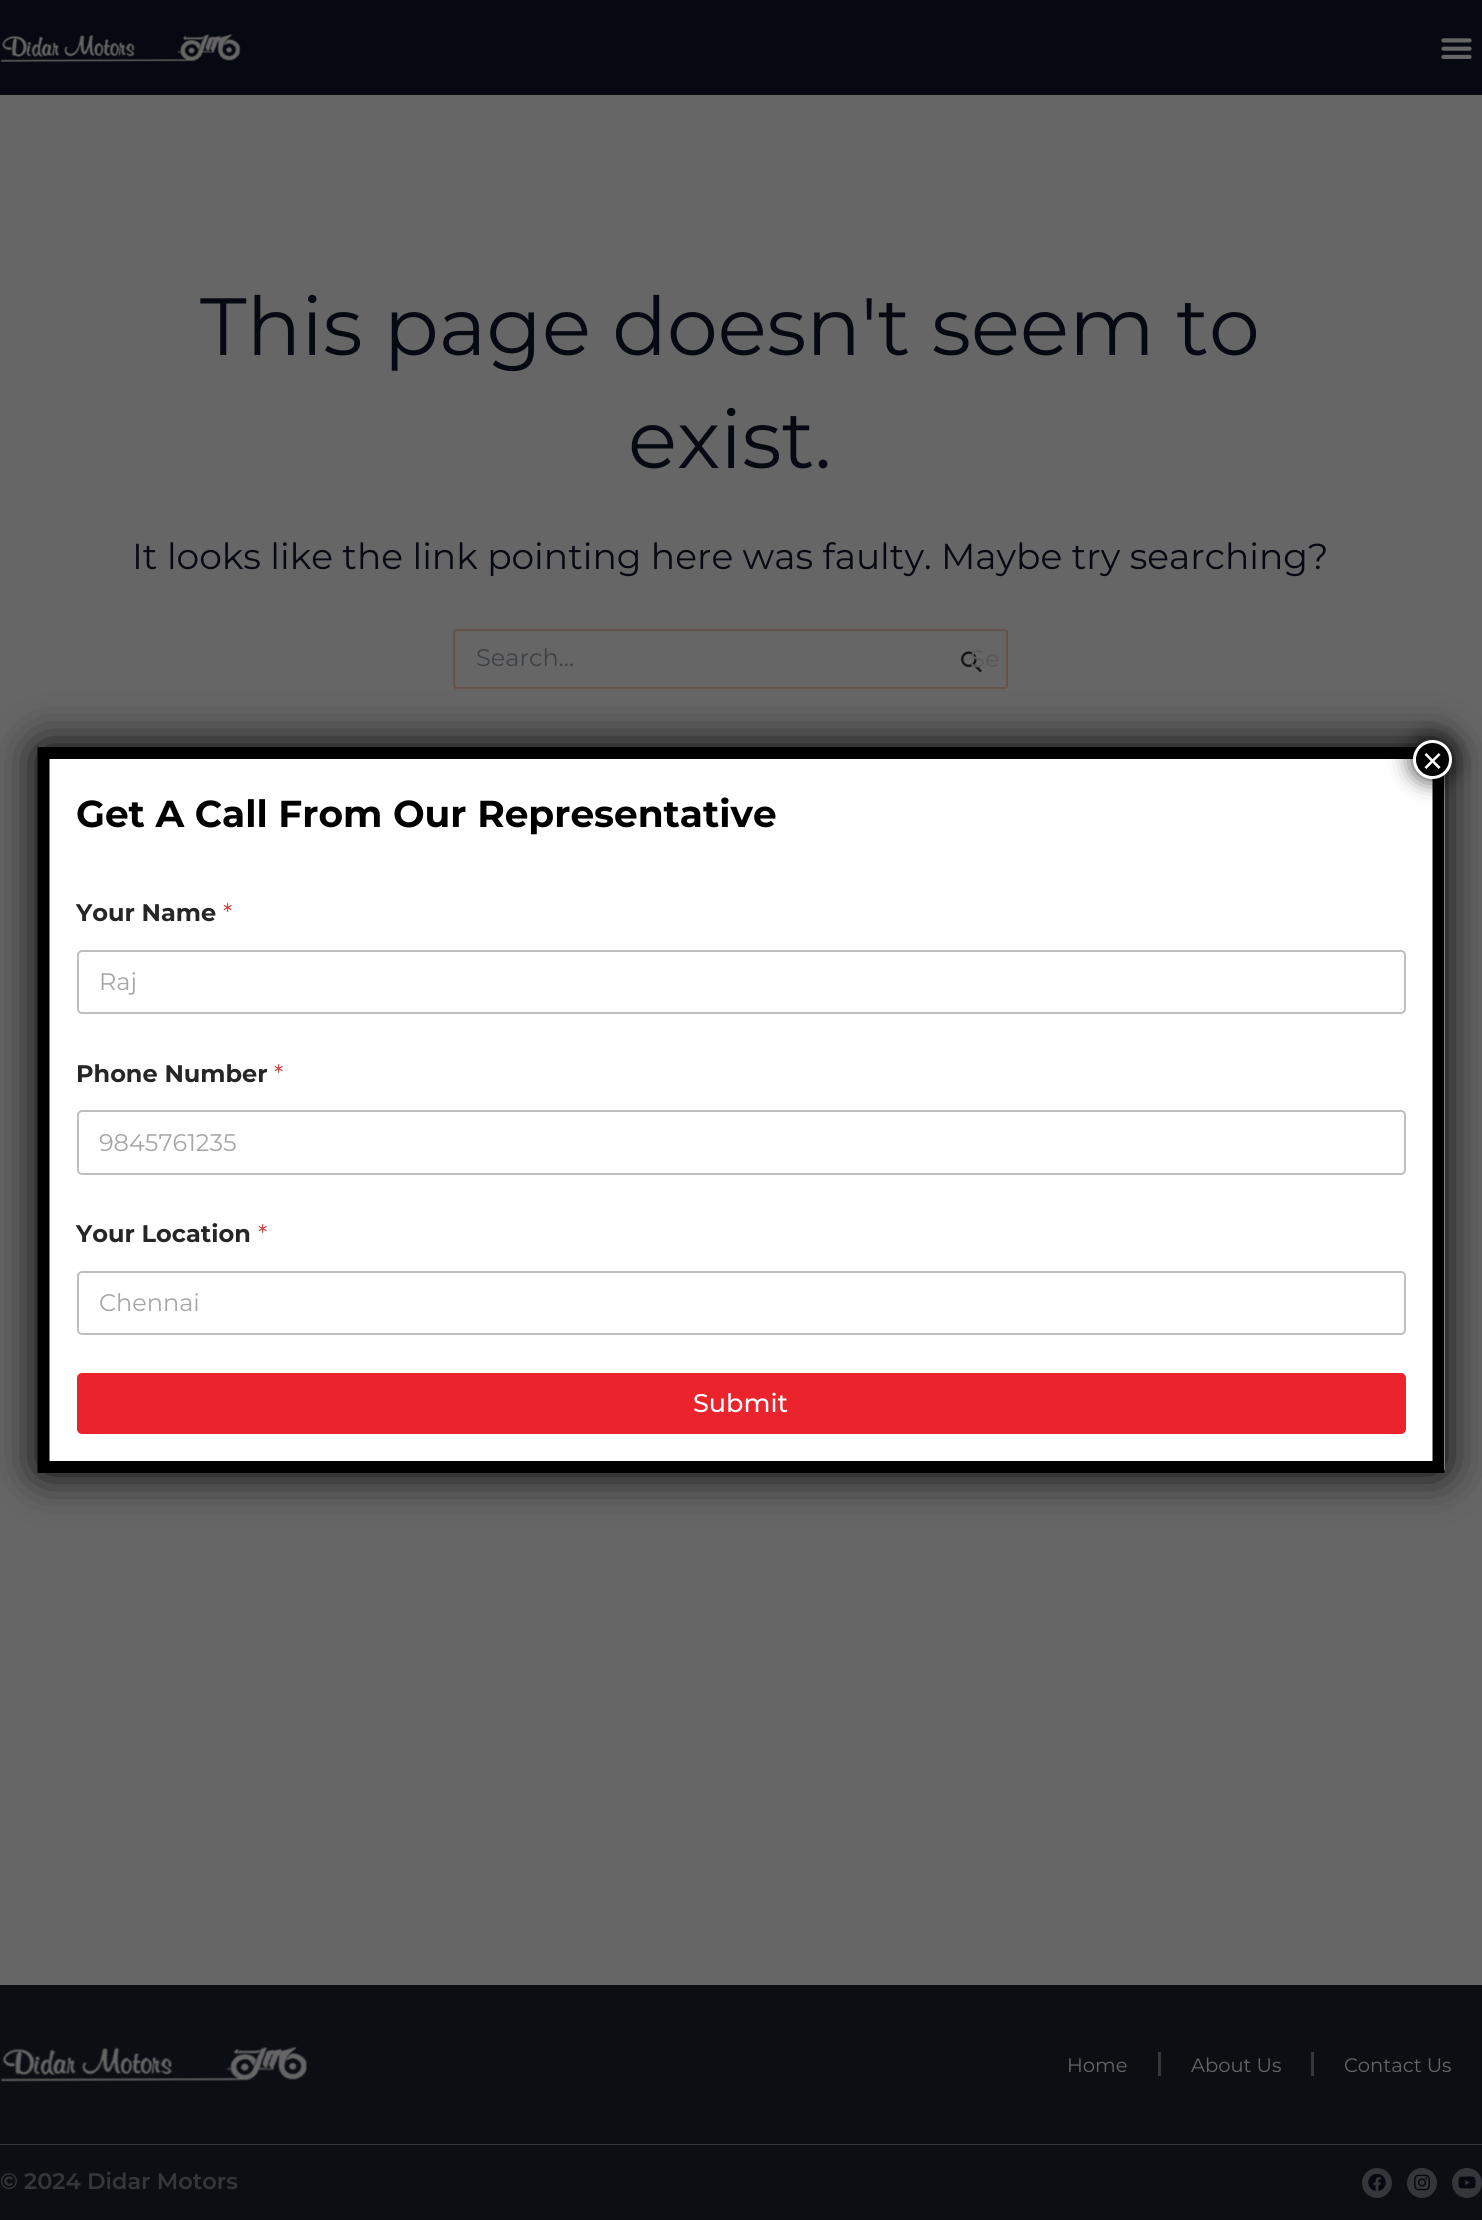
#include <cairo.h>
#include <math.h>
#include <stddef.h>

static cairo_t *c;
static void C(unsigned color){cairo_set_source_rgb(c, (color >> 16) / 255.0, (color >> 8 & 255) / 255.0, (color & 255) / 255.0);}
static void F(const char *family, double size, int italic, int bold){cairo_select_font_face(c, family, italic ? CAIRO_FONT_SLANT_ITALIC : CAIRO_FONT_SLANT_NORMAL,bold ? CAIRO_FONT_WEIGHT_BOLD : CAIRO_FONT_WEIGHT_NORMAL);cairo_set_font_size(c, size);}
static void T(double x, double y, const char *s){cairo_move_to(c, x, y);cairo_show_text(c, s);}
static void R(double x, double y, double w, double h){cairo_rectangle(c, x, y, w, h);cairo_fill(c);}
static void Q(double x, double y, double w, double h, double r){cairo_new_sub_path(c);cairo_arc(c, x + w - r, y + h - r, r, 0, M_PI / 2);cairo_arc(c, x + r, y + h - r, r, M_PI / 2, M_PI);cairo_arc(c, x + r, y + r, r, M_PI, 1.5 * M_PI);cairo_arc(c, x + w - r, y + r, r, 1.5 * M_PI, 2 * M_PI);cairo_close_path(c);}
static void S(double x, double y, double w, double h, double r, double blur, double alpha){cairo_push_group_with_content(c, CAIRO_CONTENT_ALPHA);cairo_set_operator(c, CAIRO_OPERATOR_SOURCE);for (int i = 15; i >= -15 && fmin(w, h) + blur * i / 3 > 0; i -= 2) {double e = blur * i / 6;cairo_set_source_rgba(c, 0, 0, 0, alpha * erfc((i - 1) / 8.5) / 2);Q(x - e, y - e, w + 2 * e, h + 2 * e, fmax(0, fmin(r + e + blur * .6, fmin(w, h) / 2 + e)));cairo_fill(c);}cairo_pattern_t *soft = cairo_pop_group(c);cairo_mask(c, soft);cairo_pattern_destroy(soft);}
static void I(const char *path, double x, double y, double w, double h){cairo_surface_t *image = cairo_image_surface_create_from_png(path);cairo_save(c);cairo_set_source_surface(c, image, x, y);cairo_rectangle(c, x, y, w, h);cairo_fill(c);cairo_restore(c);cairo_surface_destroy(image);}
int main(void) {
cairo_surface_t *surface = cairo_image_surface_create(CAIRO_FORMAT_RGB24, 1482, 2220);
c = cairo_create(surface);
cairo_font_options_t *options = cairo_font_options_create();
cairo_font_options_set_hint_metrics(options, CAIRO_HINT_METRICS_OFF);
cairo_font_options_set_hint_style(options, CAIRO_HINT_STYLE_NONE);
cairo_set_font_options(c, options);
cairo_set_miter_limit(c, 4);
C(0x666666);
cairo_paint(c);
C(0x060911);
R(0,0,1482,95);
I("1.png",0,34,241,29);
I("2.png",1441,38,31,21);
F("Montserrat",81,0,0);
T(200,355,"This page doesn't seem to");
T(628,468,"exist.");
F("Montserrat",36,0,0);
T(132,569,"It looks like the link pointing here was faulty. Maybe try searching?");
Q(454,630,553,58,2);
C(0x66544c);
cairo_stroke(c);
F("Montserrat",24,0,0);
C(0x3e4146);
T(476,666,"Search...");
I("3.png",961,651,21,22);
F("Montserrat Medium",24,0,0);
C(0x5c5a5a);
T(970,667,"Se");
C(0x0b0e13);
R(0,1985,1482,159);
C(0x353639);
R(0,2144,1482,1);
I("4.png",0,2047,308,35);
F("Montserrat",19.5,0,0);
C(0x666666);
T(1067,2072,"Home");
C(0x353639);
R(1158,2052,3,24);
C(0x666666);
T(1191,2072,"About Us");
C(0x353639);
R(1311,2052,3,24);
C(0x666666);
T(1344,2072,"Contact Us");
C(0x0b0e13);
R(0,2145,1482,75);
F("Montserrat SemiBold",22.5,0,0);
C(0x353639);
T(0,2189,"© 2024 Didar Motors");
cairo_new_path(c);
cairo_arc(c,1377,2183,15,0,2 * M_PI);
cairo_fill(c);
I("5.png",1368,2174,18,17);
cairo_arc(c,1422,2183,15,0,2 * M_PI);
cairo_fill(c);
I("6.png",1414,2174,16,17);
cairo_arc(c,1467,2183,15,0,2 * M_PI);
cairo_fill(c);
I("7.png",1458,2176,18,13);
C(0x020202);
S(38,747,1407,726,5,22.5,1);
C(0xffffff);
Q(38,747,1407,726,5);
cairo_fill(c);
cairo_new_path(c);
cairo_move_to(c,43.5,753);
cairo_line_to(c,1438.5,753);
cairo_line_to(c,1438.5,1467);
cairo_line_to(c,43.5,1467);
cairo_close_path(c);
C(0x000000);
cairo_set_line_width(c,12);
cairo_stroke(c);
C(0x020202);
S(1412,738,42,42,21,11,.75);
C(0x000000);
cairo_arc(c,1432.5,759.5,18,0,2 * M_PI);
cairo_fill_preserve(c);
C(0xffffff);
cairo_set_line_width(c,3);
cairo_stroke(c);
F("Liberation Sans",36,0,0);
T(1422,773,"×");
F("Montserrat",37.5,0,1);
C(0x000000);
T(76,827,"Get A Call From Our Representative");
F("Montserrat",24,0,1);
C(0x262626);
T(76,921,"Your Name");
F("Montserrat",24,0,0);
C(0xd63637);
T(223,921,"*");
Q(78,951,1327,62,4);
C(0xbfbfbf);
cairo_set_line_width(c,2);
cairo_stroke(c);
C(0xa6a6a6);
T(99,990,"Raj");
F("Montserrat",24,0,1);
C(0x262626);
T(76,1082,"Phone Number");
F("Montserrat",24,0,0);
C(0xd63637);
T(274,1082,"*");
Q(78,1111,1327,63,4);
C(0xbfbfbf);
cairo_stroke(c);
C(0xa6a6a6);
T(99,1151,"9845761235");
F("Montserrat",24,0,1);
C(0x262626);
T(76,1242,"Your Location");
F("Montserrat",24,0,0);
C(0xd63637);
T(258,1242,"*");
Q(78,1272,1327,62,4);
C(0xbfbfbf);
cairo_stroke(c);
C(0xa6a6a6);
T(99,1311,"Chennai");
C(0xeb232c);
Q(77,1373,1329,61,5);
cairo_fill(c);
F("Montserrat Medium",25.5,0,0);
C(0xffffff);
T(693,1412,"Submit");
cairo_surface_write_to_png(surface, "o.png");
cairo_font_options_destroy(options);
cairo_destroy(c);
cairo_surface_destroy(surface);
return 0;
}
